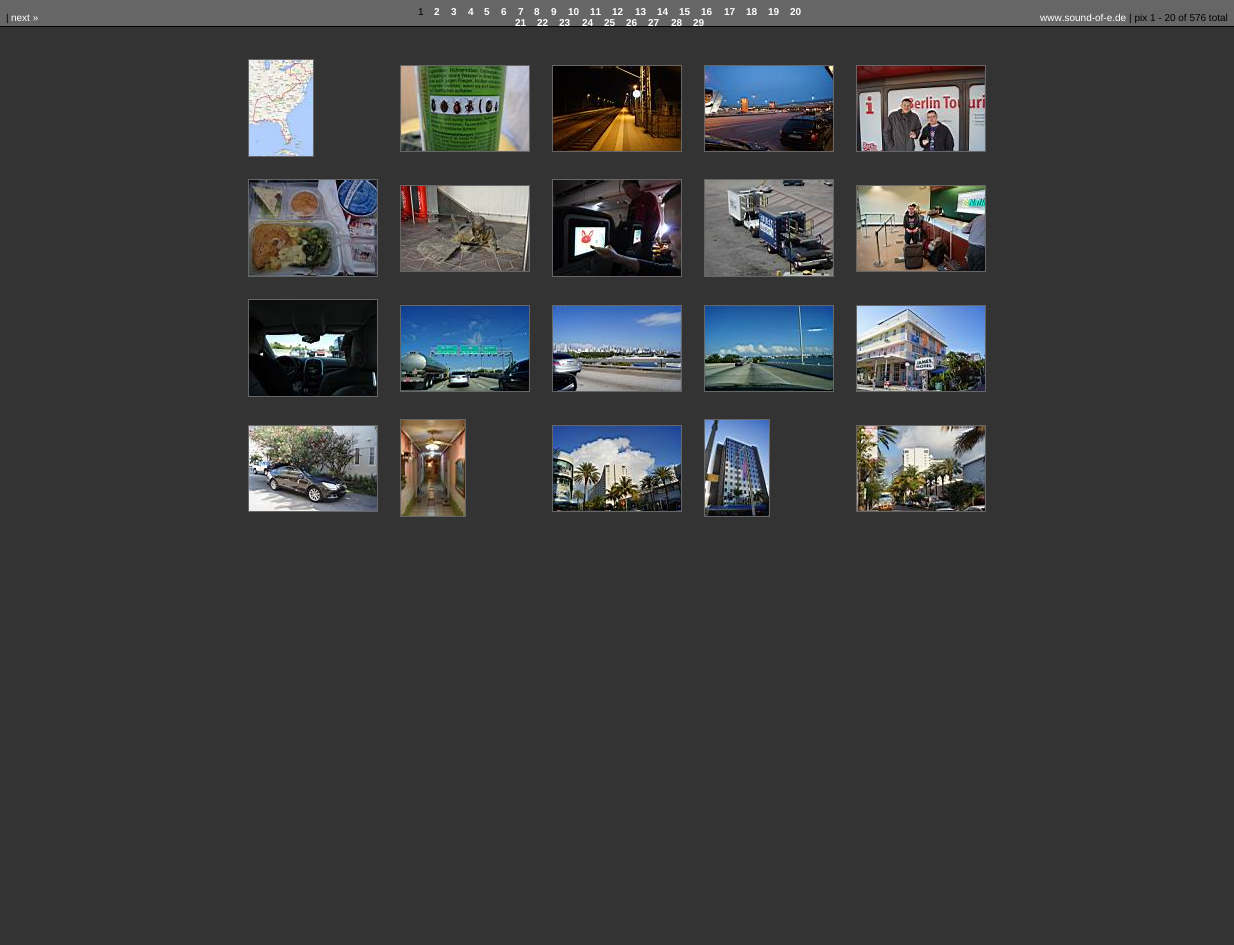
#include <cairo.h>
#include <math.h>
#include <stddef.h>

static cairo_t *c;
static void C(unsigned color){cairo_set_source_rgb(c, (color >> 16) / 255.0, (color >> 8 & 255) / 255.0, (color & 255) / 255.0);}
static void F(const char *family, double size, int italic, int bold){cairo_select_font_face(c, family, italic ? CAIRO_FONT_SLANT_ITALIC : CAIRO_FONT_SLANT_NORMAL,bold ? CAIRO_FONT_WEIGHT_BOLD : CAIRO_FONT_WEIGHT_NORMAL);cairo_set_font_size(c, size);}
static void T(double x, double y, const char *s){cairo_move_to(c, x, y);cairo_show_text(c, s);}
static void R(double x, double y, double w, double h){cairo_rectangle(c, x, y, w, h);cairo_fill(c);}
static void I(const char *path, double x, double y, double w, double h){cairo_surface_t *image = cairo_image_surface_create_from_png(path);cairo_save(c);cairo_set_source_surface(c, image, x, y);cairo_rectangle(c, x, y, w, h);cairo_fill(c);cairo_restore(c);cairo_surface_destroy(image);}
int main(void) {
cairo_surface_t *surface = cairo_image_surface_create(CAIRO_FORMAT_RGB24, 1234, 945);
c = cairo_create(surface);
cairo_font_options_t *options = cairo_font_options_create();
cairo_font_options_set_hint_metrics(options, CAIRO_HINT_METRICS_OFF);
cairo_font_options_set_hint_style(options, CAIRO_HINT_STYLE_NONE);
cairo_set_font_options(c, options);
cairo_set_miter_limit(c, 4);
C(0x333333);
cairo_paint(c);
C(0x666666);
R(0,0,1234,26);
C(0x000000);
R(0,26,1234,1);
F("Liberation Sans",10,0,0);
T(6,21,"|");
C(0xffffff);
T(11,21,"next »");
C(0x000000);
T(418,15,"1");
F("Liberation Sans",10,0,1);
C(0xffffff);
T(434,15,"2");
T(451,15,"3");
T(468,15,"4");
T(484,15,"5");
T(501,15,"6");
T(518,15,"7");
T(534,15,"8");
T(551,15,"9");
T(568,15,"10");
T(590,15,"11");
T(612,15,"12");
T(635,15,"13");
T(657,15,"14");
T(679,15,"15");
T(701,15,"16");
T(724,15,"17");
T(746,15,"18");
T(768,15,"19");
T(790,15,"20");
T(515,26,"21");
T(537,26,"22");
T(559,26,"23");
T(582,26,"24");
T(604,26,"25");
T(626,26,"26");
T(648,26,"27");
T(671,26,"28");
T(693,26,"29");
F("Liberation Sans",10,0,0);
T(1040,21,"www.sound-of-e.de");
C(0x000000);
T(1129,21,"| pix 1 - 20 of 576 total");
cairo_rectangle(c,248.5,59.5,65,97);
C(0x666666);
cairo_set_line_width(c,1);
cairo_stroke(c);
I("1.png",249,60,64,96);
cairo_rectangle(c,400.5,65.5,129,86);
cairo_stroke(c);
I("2.png",401,66,128,85);
cairo_rectangle(c,552.5,65.5,129,86);
cairo_stroke(c);
I("3.png",553,66,128,85);
cairo_rectangle(c,704.5,65.5,129,86);
cairo_stroke(c);
I("4.png",705,66,128,85);
cairo_rectangle(c,856.5,65.5,129,86);
cairo_stroke(c);
I("5.png",857,66,128,85);
cairo_rectangle(c,248.5,179.5,129,97);
cairo_stroke(c);
I("6.png",249,180,128,96);
cairo_rectangle(c,400.5,185.5,129,86);
cairo_stroke(c);
I("7.png",401,186,128,85);
cairo_rectangle(c,552.5,179.5,129,97);
cairo_stroke(c);
I("8.png",553,180,128,96);
cairo_rectangle(c,704.5,179.5,129,97);
cairo_stroke(c);
I("9.png",705,180,128,96);
cairo_rectangle(c,856.5,185.5,129,86);
cairo_stroke(c);
I("10.png",857,186,128,85);
cairo_rectangle(c,248.5,299.5,129,97);
cairo_stroke(c);
I("11.png",249,300,128,96);
cairo_rectangle(c,400.5,305.5,129,86);
cairo_stroke(c);
I("12.png",401,306,128,85);
cairo_rectangle(c,552.5,305.5,129,86);
cairo_stroke(c);
I("13.png",553,306,128,85);
cairo_rectangle(c,704.5,305.5,129,86);
cairo_stroke(c);
I("14.png",705,306,128,85);
cairo_rectangle(c,856.5,305.5,129,86);
cairo_stroke(c);
I("15.png",857,306,128,85);
cairo_rectangle(c,248.5,425.5,129,86);
cairo_stroke(c);
I("16.png",249,426,128,85);
cairo_rectangle(c,400.5,419.5,65,97);
cairo_stroke(c);
I("17.png",401,420,64,96);
cairo_rectangle(c,552.5,425.5,129,86);
cairo_stroke(c);
I("18.png",553,426,128,85);
cairo_rectangle(c,704.5,419.5,65,97);
cairo_stroke(c);
I("19.png",705,420,64,96);
cairo_rectangle(c,856.5,425.5,129,86);
cairo_stroke(c);
I("20.png",857,426,128,85);
cairo_surface_write_to_png(surface, "o.png");
cairo_font_options_destroy(options);
cairo_destroy(c);
cairo_surface_destroy(surface);
return 0;
}
